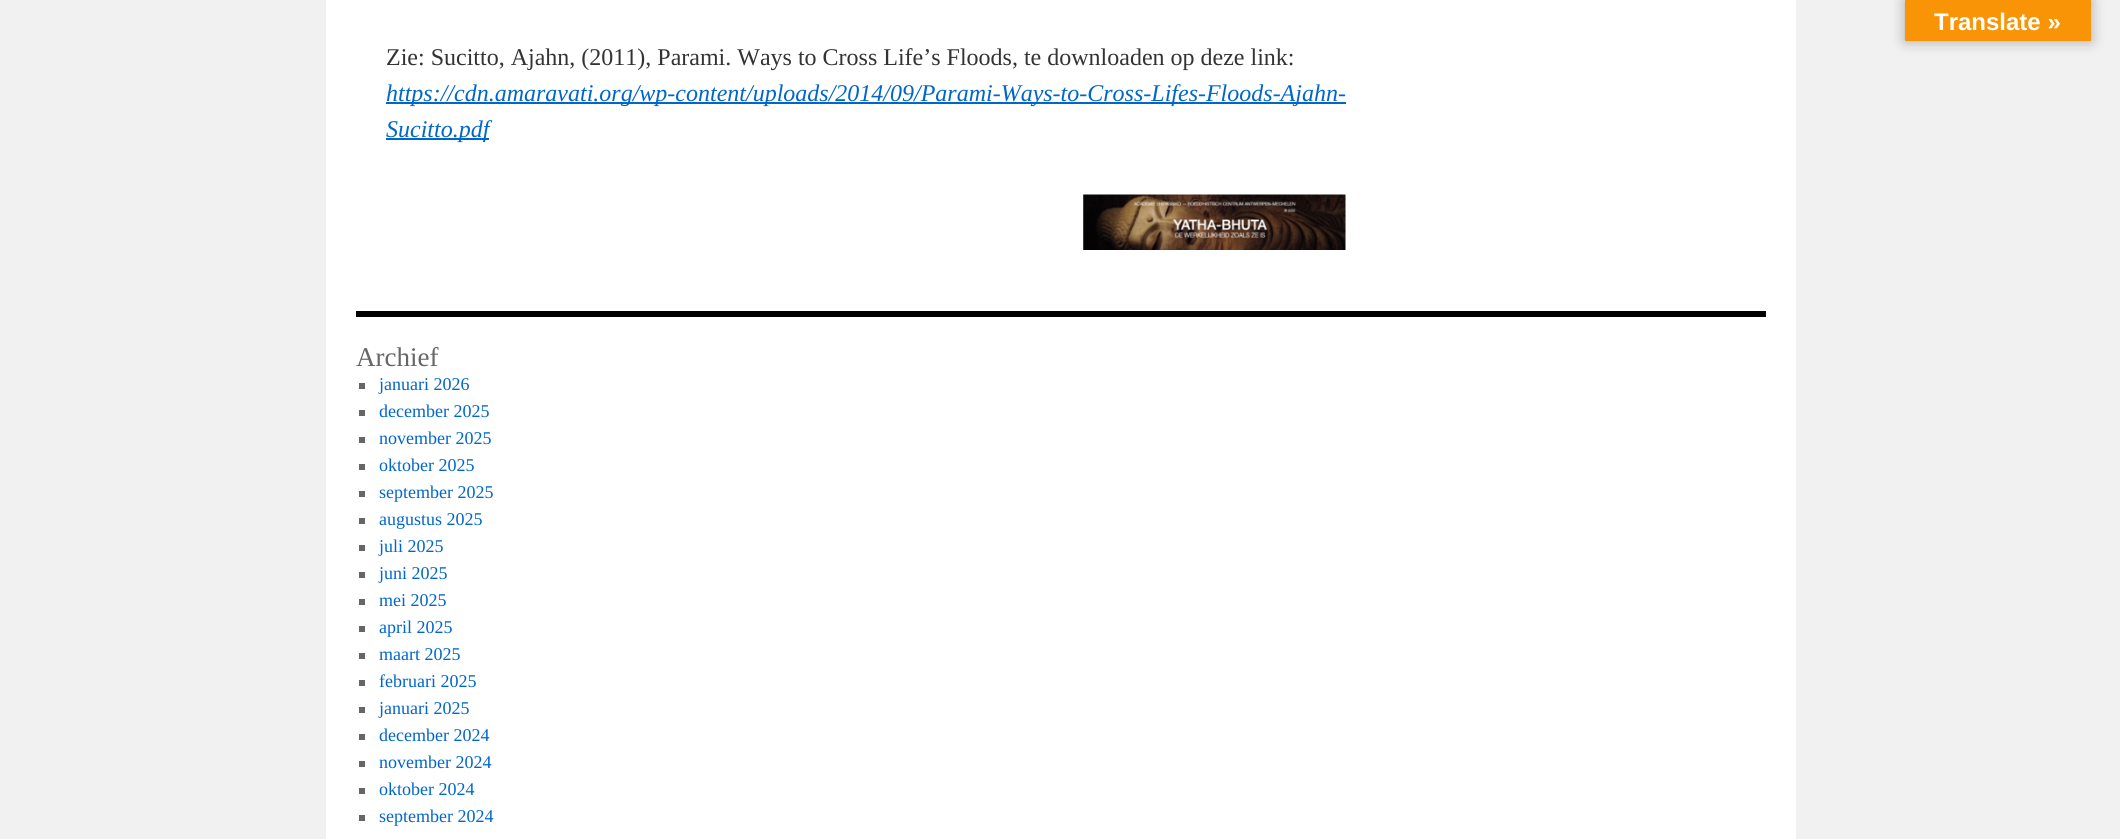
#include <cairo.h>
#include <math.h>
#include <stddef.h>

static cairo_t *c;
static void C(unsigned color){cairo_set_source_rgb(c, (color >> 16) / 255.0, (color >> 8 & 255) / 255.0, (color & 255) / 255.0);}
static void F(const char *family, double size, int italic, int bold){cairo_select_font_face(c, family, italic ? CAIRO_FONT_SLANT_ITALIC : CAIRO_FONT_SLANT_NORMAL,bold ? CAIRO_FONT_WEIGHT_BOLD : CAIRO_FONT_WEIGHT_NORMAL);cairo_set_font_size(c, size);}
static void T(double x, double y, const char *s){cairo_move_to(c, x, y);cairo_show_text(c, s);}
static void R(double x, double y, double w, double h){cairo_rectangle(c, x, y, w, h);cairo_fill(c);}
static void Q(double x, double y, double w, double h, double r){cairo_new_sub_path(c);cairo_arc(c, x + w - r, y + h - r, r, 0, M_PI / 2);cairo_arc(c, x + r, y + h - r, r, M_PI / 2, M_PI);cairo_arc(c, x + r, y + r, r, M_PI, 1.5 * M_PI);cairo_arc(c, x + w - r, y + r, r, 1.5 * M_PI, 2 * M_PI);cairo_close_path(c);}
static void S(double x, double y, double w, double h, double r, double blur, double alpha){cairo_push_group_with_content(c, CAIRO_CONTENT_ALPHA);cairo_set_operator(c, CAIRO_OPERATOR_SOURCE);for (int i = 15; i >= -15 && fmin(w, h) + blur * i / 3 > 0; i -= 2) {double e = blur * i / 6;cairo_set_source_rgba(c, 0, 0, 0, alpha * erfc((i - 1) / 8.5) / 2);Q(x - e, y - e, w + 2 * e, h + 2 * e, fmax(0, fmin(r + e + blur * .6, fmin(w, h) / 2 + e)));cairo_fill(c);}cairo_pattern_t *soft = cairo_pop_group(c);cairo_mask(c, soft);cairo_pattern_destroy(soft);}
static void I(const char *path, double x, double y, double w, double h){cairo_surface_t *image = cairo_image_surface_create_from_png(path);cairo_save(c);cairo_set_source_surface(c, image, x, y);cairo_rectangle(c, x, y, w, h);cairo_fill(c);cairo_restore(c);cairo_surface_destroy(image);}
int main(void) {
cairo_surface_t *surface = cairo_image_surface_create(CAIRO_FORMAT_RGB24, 2120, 839);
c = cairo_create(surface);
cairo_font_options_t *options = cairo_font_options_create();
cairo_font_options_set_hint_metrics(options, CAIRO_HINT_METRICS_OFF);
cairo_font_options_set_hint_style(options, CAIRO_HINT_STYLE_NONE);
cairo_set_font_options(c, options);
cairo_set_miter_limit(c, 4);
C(0xf1f1f1);
cairo_paint(c);
C(0x000000);
S(1905,0,186,41,0,7,.3);
C(0xf89406);
R(1905,0,186,41);
F("Liberation Sans",24,0,1);
C(0xffffff);
T(1934,30,"Translate »");
R(326,0,1470,839);
F("Liberation Serif",24,0,0);
C(0x333333);
T(386,65,"Zie: Sucitto, Ajahn, (2011), Parami. Ways to Cross Life’s Floods, te downloaden op deze link:");
C(0x0066cc);
R(386,102,960,2);
F("Liberation Serif",24,1,0);
T(386,101,"https://cdn.amaravati.org/wp-content/uploads/2014/09/Parami-Ways-to-Cross-Lifes-Floods-Ajahn-");
R(386,138,103,2);
T(386,137,"Sucitto.pdf");
I("1.png",1083,194,263,56);
C(0x000000);
R(356,311,1410,6);
F("Liberation Serif",27,0,0);
C(0x666666);
T(356,366,"Archief");
R(359,383,6,6);
F("Liberation Serif",18,0,0);
C(0x0066cc);
T(379,390,"januari 2026");
C(0x666666);
R(359,410,6,6);
C(0x0066cc);
T(379,417,"december 2025");
C(0x666666);
R(359,437,6,6);
C(0x0066cc);
T(379,444,"november 2025");
C(0x666666);
R(359,464,6,6);
C(0x0066cc);
T(379,471,"oktober 2025");
C(0x666666);
R(359,491,6,6);
C(0x0066cc);
T(379,498,"september 2025");
C(0x666666);
R(359,518,6,6);
C(0x0066cc);
T(379,525,"augustus 2025");
C(0x666666);
R(359,545,6,6);
C(0x0066cc);
T(379,552,"juli 2025");
C(0x666666);
R(359,572,6,6);
C(0x0066cc);
T(379,579,"juni 2025");
C(0x666666);
R(359,599,6,6);
C(0x0066cc);
T(379,606,"mei 2025");
C(0x666666);
R(359,626,6,6);
C(0x0066cc);
T(379,633,"april 2025");
C(0x666666);
R(359,653,6,6);
C(0x0066cc);
T(379,660,"maart 2025");
C(0x666666);
R(359,680,6,6);
C(0x0066cc);
T(379,687,"februari 2025");
C(0x666666);
R(359,707,6,6);
C(0x0066cc);
T(379,714,"januari 2025");
C(0x666666);
R(359,734,6,6);
C(0x0066cc);
T(379,741,"december 2024");
C(0x666666);
R(359,761,6,6);
C(0x0066cc);
T(379,768,"november 2024");
C(0x666666);
R(359,788,6,6);
C(0x0066cc);
T(379,795,"oktober 2024");
C(0x666666);
R(359,815,6,6);
C(0x0066cc);
T(379,822,"september 2024");
cairo_surface_write_to_png(surface, "o.png");
cairo_font_options_destroy(options);
cairo_destroy(c);
cairo_surface_destroy(surface);
return 0;
}
